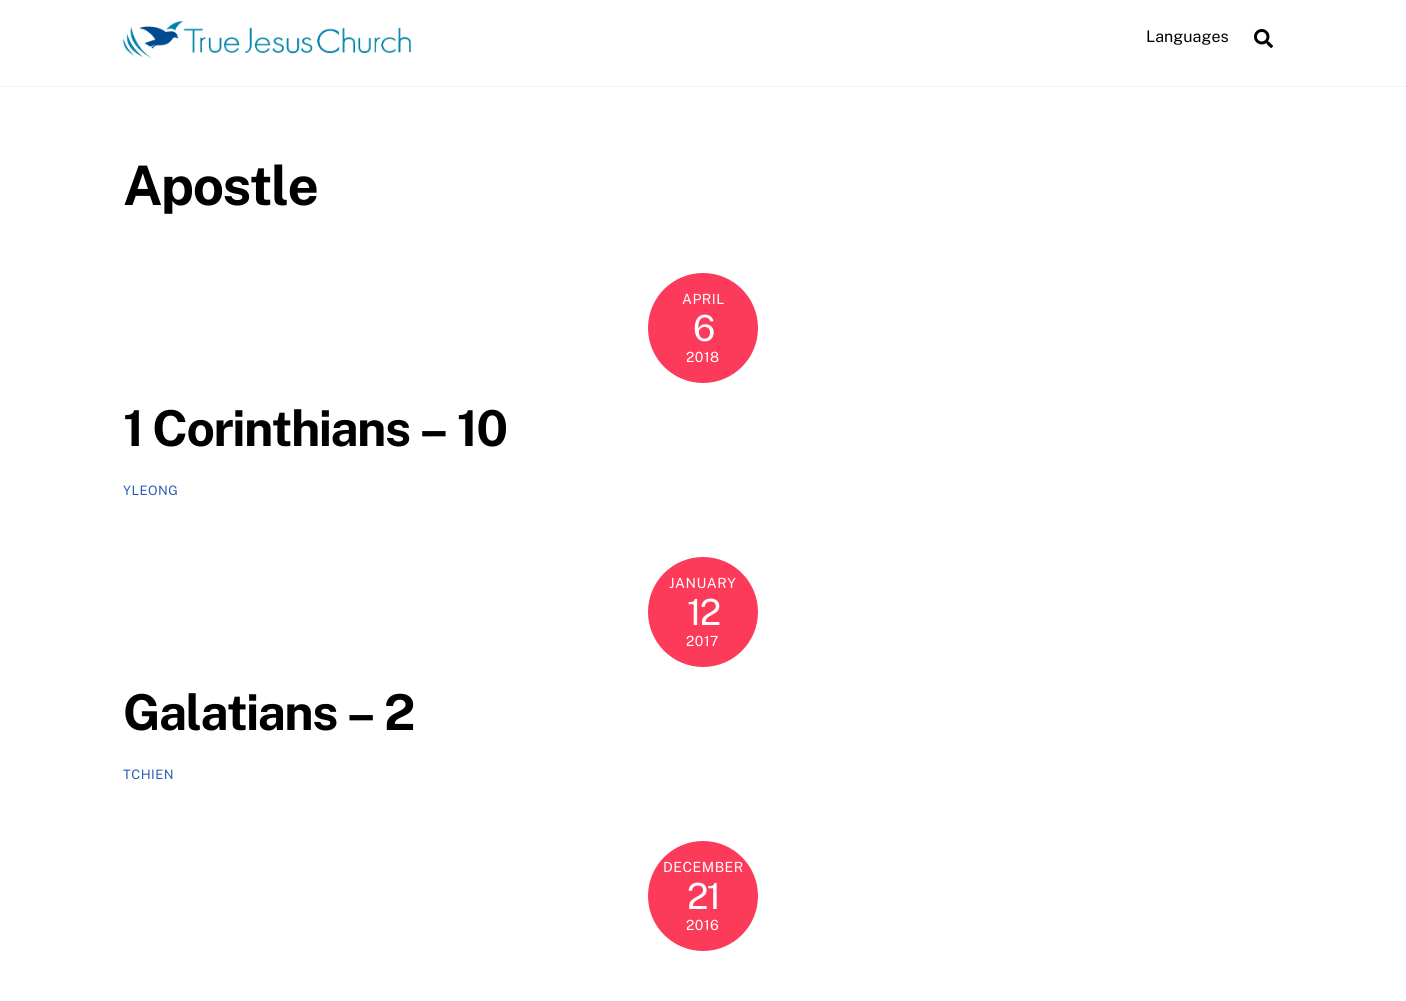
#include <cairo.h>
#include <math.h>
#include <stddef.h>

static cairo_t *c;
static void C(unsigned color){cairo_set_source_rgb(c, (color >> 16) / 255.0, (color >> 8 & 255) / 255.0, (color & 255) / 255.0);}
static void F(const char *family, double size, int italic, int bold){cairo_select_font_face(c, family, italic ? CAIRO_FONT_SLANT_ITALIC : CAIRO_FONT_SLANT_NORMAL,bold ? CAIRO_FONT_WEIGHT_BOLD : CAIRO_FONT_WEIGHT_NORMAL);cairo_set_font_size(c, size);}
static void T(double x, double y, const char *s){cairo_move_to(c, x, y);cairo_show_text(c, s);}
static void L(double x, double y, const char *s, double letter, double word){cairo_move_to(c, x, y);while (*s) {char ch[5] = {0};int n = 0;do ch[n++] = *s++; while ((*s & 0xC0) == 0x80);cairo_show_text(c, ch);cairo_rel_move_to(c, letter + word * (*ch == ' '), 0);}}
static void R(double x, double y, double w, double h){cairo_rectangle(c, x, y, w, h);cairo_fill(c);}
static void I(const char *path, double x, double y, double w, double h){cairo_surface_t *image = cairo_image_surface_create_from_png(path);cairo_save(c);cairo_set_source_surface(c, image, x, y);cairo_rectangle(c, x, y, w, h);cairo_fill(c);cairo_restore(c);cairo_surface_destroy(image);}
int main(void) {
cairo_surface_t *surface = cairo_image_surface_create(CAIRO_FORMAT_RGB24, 1406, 1001);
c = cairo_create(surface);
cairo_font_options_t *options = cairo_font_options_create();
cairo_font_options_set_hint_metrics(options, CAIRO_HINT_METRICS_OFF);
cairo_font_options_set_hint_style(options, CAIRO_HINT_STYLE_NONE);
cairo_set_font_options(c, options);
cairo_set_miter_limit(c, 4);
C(0xffffff);
cairo_paint(c);
C(0xf2f2f2);
R(0,86,1406,1);
I("1.png",123,21,288,37);
F("Public Sans",16,0,0);
C(0x000000);
T(1146,42,"Languages");
I("2.png",1254,29,19,19);
F("Public Sans",54.5,0,1);
L(123,205,"Apostle",-1.5,0);
C(0xfc3a59);
cairo_new_path(c);
cairo_arc(c,703,328,55,0,2 * M_PI);
cairo_fill(c);
F("Public Sans",14,0,0);
C(0xffffff);
L(682,304,"APRIL",.5,0);
F("Public Sans",36,0,0);
L(693,341,"6",-2,0);
F("Public Sans",14,0,0);
L(686,362,"2018",.5,0);
F("Public Sans",49.5,0,1);
C(0x000000);
L(123,446,"1 Corinthians – 10",-1.5,0);
F("Public Sans",13,0,0);
C(0x2a5db0);
L(123,495,"YLEONG",.5,0);
C(0xfc3a59);
cairo_new_path(c);
cairo_arc(c,703,612,55,0,2 * M_PI);
cairo_fill(c);
F("Public Sans",14,0,0);
C(0xffffff);
L(669,588,"JANUARY",.5,0);
F("Public Sans",36,0,0);
L(687,625,"12",-2,0);
F("Public Sans",14,0,0);
L(686,646,"2017",.5,0);
F("Public Sans",49.5,0,1);
C(0x000000);
L(123,730,"Galatians – 2",-1.5,0);
F("Public Sans",13,0,0);
C(0x2a5db0);
L(123,779,"TCHIEN",.5,0);
C(0xfc3a59);
cairo_new_path(c);
cairo_arc(c,703,896,55,0,2 * M_PI);
cairo_fill(c);
F("Public Sans",14,0,0);
C(0xffffff);
L(663,872,"DECEMBER",.5,0);
F("Public Sans",36,0,0);
L(687,909,"21",-2,0);
F("Public Sans",14,0,0);
L(686,930,"2016",.5,0);
cairo_surface_write_to_png(surface, "o.png");
cairo_font_options_destroy(options);
cairo_destroy(c);
cairo_surface_destroy(surface);
return 0;
}
